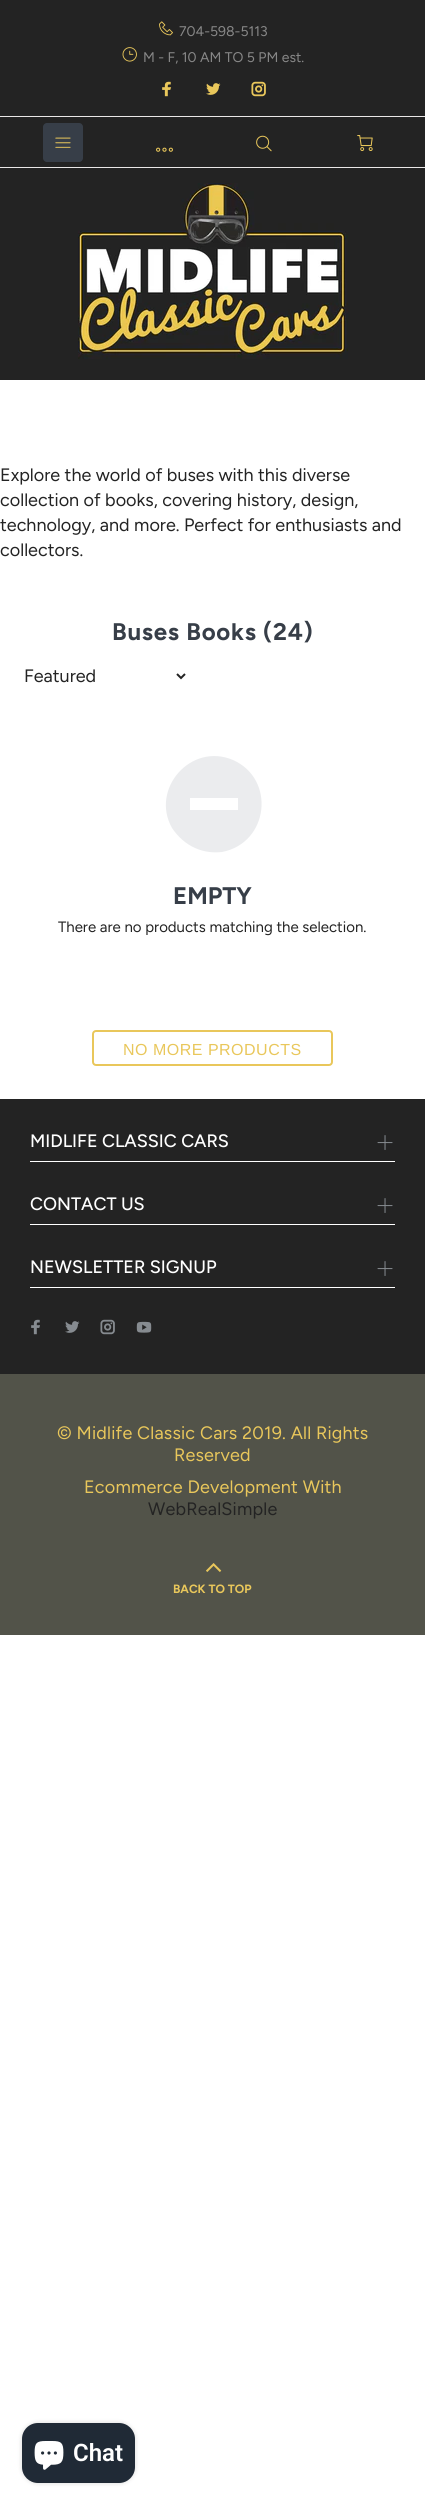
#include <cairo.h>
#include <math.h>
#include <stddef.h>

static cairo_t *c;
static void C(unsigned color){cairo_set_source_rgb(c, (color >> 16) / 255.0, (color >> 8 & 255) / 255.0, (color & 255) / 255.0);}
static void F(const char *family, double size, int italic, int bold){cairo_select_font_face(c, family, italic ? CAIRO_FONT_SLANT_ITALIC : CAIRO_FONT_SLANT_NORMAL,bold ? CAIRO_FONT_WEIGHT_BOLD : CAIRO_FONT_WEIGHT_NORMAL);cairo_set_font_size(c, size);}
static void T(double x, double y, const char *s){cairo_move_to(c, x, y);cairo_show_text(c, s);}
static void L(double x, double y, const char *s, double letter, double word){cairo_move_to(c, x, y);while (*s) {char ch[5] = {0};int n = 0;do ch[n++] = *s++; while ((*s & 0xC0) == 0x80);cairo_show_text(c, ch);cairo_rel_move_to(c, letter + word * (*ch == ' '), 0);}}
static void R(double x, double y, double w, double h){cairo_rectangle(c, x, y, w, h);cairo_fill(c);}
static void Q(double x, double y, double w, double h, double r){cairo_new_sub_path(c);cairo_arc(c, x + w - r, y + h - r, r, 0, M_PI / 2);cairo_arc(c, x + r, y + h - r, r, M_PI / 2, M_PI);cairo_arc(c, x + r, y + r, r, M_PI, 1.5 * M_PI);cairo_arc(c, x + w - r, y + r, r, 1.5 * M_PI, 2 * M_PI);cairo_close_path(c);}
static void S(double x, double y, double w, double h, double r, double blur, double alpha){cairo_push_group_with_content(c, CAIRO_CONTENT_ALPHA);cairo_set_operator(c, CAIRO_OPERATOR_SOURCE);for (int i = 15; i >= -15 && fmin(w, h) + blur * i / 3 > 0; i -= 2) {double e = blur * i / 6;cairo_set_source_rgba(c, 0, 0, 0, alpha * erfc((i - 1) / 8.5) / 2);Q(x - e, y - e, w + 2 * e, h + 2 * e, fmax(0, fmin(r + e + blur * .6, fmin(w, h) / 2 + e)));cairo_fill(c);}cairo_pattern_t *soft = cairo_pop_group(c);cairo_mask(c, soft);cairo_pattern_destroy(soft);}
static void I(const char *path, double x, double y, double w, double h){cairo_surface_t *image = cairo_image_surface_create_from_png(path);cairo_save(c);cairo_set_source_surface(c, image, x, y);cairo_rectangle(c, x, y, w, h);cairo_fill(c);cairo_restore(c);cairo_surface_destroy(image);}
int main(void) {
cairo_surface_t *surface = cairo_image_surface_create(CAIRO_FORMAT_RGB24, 425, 2504);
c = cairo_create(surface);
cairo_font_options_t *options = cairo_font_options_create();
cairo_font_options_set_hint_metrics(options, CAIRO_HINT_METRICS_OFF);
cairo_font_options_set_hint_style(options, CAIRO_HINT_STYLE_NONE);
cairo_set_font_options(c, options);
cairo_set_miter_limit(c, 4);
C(0xffffff);
cairo_paint(c);
C(0x232323);
R(0,0,425,380);
I("1.png",159,21,14,15);
F("Figtree",14,0,0);
C(0x888888);
T(179,36,"704-598-5113");
I("2.png",122,47,15,15);
T(143,62,"M - F, 10 AM TO 5 PM est.");
I("3.png",162,81,10,16);
I("4.png",206,83,15,12);
I("5.png",251,81,15,16);
C(0xe9e7e7);
R(0,116,425,1);
C(0x373e48);
Q(43,123,40,39,4);
cairo_fill(c);
I("6.png",55,137,16,11);
I("7.png",156,147,17,5);
I("8.png",256,135,16,17);
I("9.png",357,135,16,16);
C(0xe9e7e7);
R(0,167,425,1);
I("10.png",78,183,270,176);
F("Figtree",18,0,0);
C(0x232323);
T(0,481,"Explore the world of buses with this diverse");
T(0,506,"collection of books, covering history, design,");
T(0,531,"technology, and more. Perfect for enthusiasts and");
T(0,556,"collectors.");
F("Figtree",24,0,1);
C(0x373e48);
L(112,640,"Buses Books (24)",.75,0);
cairo_new_path(c);
cairo_move_to(c,177,674);
cairo_line_to(c,181,678);
cairo_line_to(c,185,674);
C(0x232323);
cairo_stroke(c);
F("Figtree",18,0,0);
T(24,682,"Featured");
C(0xebecee);
cairo_new_path(c);
cairo_move_to(c,233,760);
cairo_curve_to(c,276,779,269,843,222,852);
cairo_curve_to(c,213,853,204,852,195,848);
cairo_curve_to(c,186,844,178,837,172,828);
cairo_curve_to(c,150,789,191,742,233,760);
cairo_close_path(c);
cairo_move_to(c,238,798);
cairo_line_to(c,190,798);
cairo_line_to(c,190,810);
cairo_line_to(c,238,810);
cairo_close_path(c);
cairo_fill(c);
F("Figtree",24,0,1);
C(0x373e48);
T(173,904,"EMPTY");
F("Figtree",15,0,0);
C(0x232323);
T(58,932,"There are no products matching the selection.");
Q(93,1031,239,34,3);
C(0xe9c75b);
cairo_stroke(c);
F("Liberation Sans",16,0,0);
L(123,1055,"NO MORE PRODUCTS",.5,0);
C(0x232323);
R(0,1099,425,275);
C(0xffffff);
R(30,1161,365,1);
F("Figtree Medium",18,0,0);
T(30,1147,"MIDLIFE CLASSIC CARS");
I("11.png",377,1135,16,15);
R(30,1224,365,1);
T(30,1210,"CONTACT US");
I("11.png",377,1198,16,15);
R(30,1287,365,1);
T(30,1273,"NEWSLETTER SIGNUP");
I("11.png",377,1261,16,15);
I("12.png",31,1319,9,16);
I("13.png",65,1321,15,12);
I("14.png",100,1319,15,16);
I("15.png",136,1321,16,12);
C(0x525349);
R(0,1374,425,261);
F("Figtree",18,0,0);
C(0xe9c75b);
L(57,1439,"© Midlife Classic Cars 2019. All Rights",.2,0);
L(174,1461,"Reserved",.2,0);
L(84,1493,"Ecommerce Development With",.2,0);
C(0x232323);
L(148,1515,"WebRealSimple",.2,0);
I("16.png",206,1563,16,9);
F("Figtree",12,0,1);
C(0xe9c75b);
T(173,1593,"BACK TO TOP");
C(0x000000);
S(22,2423,113,60,16,2.5,.15);
C(0x202a36);
Q(22,2423,113,60,16);
cairo_fill(c);
I("17.png",34,2441,30,29);
F("Roboto SemiBold",24,0,0);
C(0xffffff);
T(73,2461,"Chat");
cairo_surface_write_to_png(surface, "o.png");
cairo_font_options_destroy(options);
cairo_destroy(c);
cairo_surface_destroy(surface);
return 0;
}
